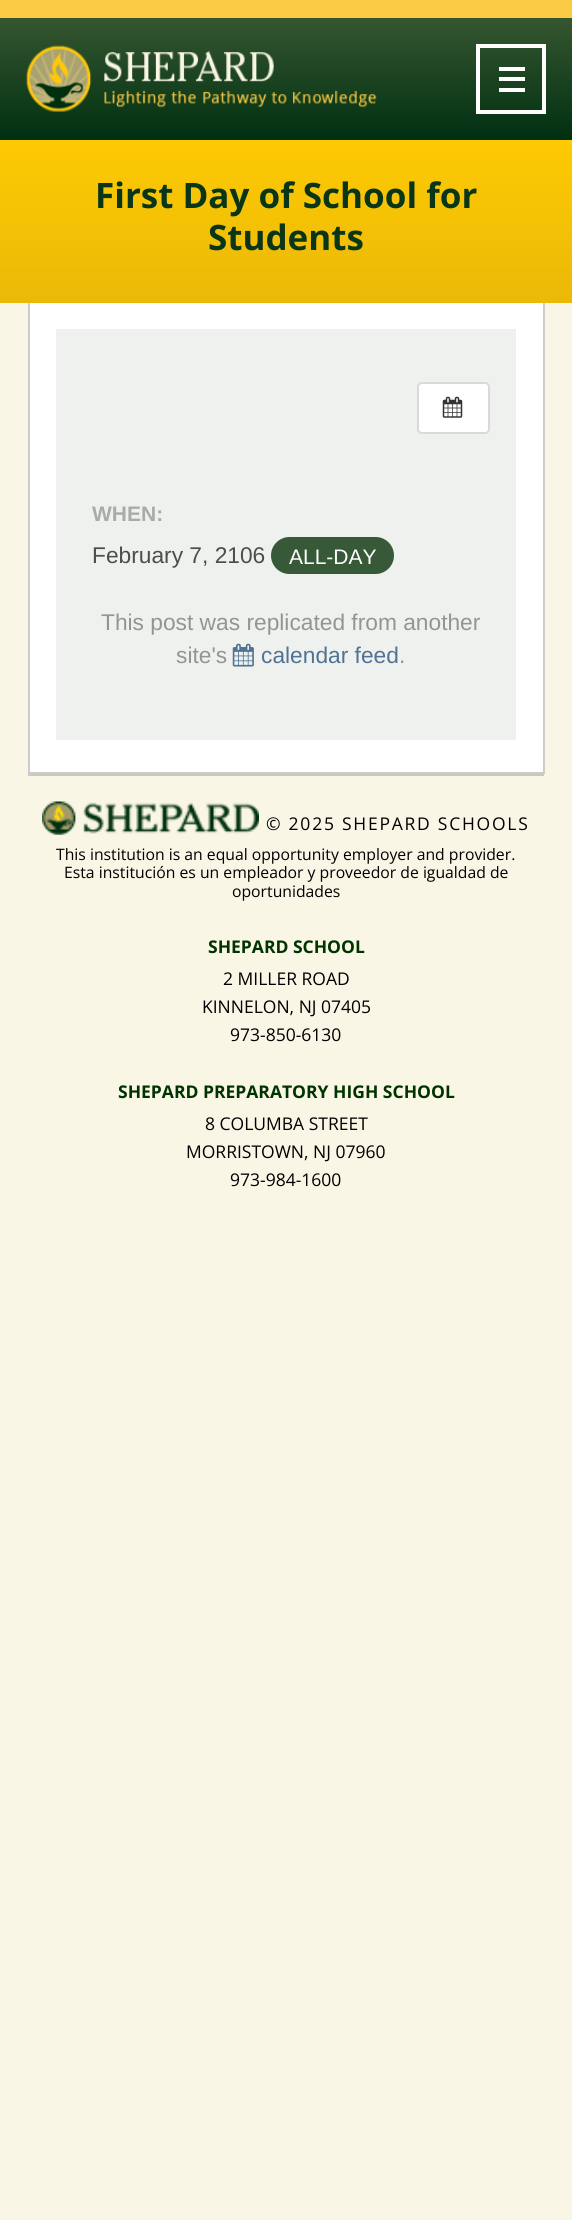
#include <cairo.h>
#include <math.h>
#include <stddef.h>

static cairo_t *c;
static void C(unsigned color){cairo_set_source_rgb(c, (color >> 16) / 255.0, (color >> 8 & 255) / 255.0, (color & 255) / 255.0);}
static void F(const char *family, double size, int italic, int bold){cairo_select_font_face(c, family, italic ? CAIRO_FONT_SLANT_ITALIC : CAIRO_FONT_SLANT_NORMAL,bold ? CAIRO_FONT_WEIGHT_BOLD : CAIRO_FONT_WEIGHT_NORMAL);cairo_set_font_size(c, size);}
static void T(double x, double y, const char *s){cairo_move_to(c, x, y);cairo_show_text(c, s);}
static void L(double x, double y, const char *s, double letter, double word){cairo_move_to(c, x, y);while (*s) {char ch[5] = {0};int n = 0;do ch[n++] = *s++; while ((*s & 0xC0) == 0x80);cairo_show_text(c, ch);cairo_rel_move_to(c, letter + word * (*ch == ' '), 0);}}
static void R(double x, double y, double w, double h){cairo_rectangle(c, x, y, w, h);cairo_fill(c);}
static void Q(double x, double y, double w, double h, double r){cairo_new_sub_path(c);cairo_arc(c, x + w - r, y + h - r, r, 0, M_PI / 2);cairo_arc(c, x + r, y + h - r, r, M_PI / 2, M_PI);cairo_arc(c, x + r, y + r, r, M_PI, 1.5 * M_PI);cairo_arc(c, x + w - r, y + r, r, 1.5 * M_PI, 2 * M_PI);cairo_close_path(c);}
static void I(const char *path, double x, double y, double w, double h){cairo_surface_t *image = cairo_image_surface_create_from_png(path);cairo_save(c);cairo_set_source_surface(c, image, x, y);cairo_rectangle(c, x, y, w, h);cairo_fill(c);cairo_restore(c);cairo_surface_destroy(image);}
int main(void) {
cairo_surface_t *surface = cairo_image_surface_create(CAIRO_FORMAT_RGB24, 572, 2220);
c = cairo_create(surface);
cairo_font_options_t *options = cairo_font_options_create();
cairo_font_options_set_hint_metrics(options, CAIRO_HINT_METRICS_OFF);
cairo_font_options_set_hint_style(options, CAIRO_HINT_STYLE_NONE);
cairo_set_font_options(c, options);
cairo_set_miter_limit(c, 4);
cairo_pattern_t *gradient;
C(0xf9f6e6);
cairo_paint(c);
gradient = cairo_pattern_create_linear(286,17,286,140);
cairo_pattern_add_color_stop_rgba(gradient,0,0.212,0.337,0.188,1);
cairo_pattern_add_color_stop_rgba(gradient,1,0,0.188,0.067,1);
cairo_set_source(c,gradient);
cairo_pattern_destroy(gradient);
R(0,18,572,122);
C(0xfbcb45);
R(0,0,572,18);
I("1.png",26,45,351,67);
cairo_rectangle(c,478,46,66,66);
C(0xffffff);
cairo_set_line_width(c,4);
cairo_stroke(c);
R(499,77,26,4);
R(499,67,26,4);
R(499,88,26,4);
gradient = cairo_pattern_create_linear(286,140,286,303);
cairo_pattern_add_color_stop_rgba(gradient,0,0.996,0.792,0.016,1);
cairo_pattern_add_color_stop_rgba(gradient,1,0.918,0.725,0.027,1);
cairo_set_source(c,gradient);
cairo_pattern_destroy(gradient);
R(0,140,572,163);
F("Open Sans",35,0,1);
C(0x093617);
T(95,208,"First Day of School for");
T(208,250,"Students");
C(0xffffff);
R(30,303,513,469);
C(0xcccccc);
R(543,303,2,471);
R(28,772,516,2);
R(28,303,2,471);
C(0xeef1ee);
R(56,329,460,411);
C(0xffffff);
Q(418,383,71,50,4);
cairo_fill_preserve(c);
C(0xd9d9d9);
cairo_set_line_width(c,2);
cairo_stroke(c);
I("2.png",442,396,21,22);
F("Liberation Sans",21,0,1);
C(0xaaaaaa);
T(92,521,"WHEN:");
F("Liberation Sans",22.75,0,0);
C(0x4d4d4d);
T(92,563,"February 7, 2106");
C(0x375938);
Q(271,537,123,37,18.5);
cairo_fill(c);
F("Liberation Sans",21,0,0);
C(0xfdfefd);
T(289,564,"ALL-DAY");
F("Liberation Sans",22.75,0,0);
C(0x949494);
T(101,630,"This post was replicated from another");
T(176,663,"site's");
I("3.png",232,643,22,24);
C(0x507295);
T(261,663,"calendar feed");
C(0x949494);
T(399,663,".");
C(0xcbc9bd);
R(28,774,516,2);
I("4.png",42,801,217,34);
F("Open Sans",17.5,0,0);
C(0x000000);
L(266,830,"© 2025 SHEPARD SCHOOLS",1.75,0);
F("Open Sans",15.75,0,0);
T(56,860,"This institution is an equal opportunity employer and provider.");
T(64,878,"Esta institución es un empleador y proveedor de igualdad de");
T(232,897,"oportunidades");
F("Open Sans",17.5,0,1);
C(0x003300);
T(208,953,"SHEPARD SCHOOL");
F("Open Sans",17.5,0,0);
C(0x000000);
T(223,985,"2 MILLER ROAD");
T(202,1013,"KINNELON, NJ 07405");
T(230,1041,"973-850-6130");
F("Open Sans",17.5,0,1);
C(0x003300);
T(118,1098,"SHEPARD PREPARATORY HIGH SCHOOL");
F("Open Sans",17.5,0,0);
C(0x000000);
T(205,1130,"8 COLUMBA STREET");
T(186,1158,"MORRISTOWN, NJ 07960");
T(230,1186,"973-984-1600");
cairo_surface_write_to_png(surface, "o.png");
cairo_font_options_destroy(options);
cairo_destroy(c);
cairo_surface_destroy(surface);
return 0;
}
